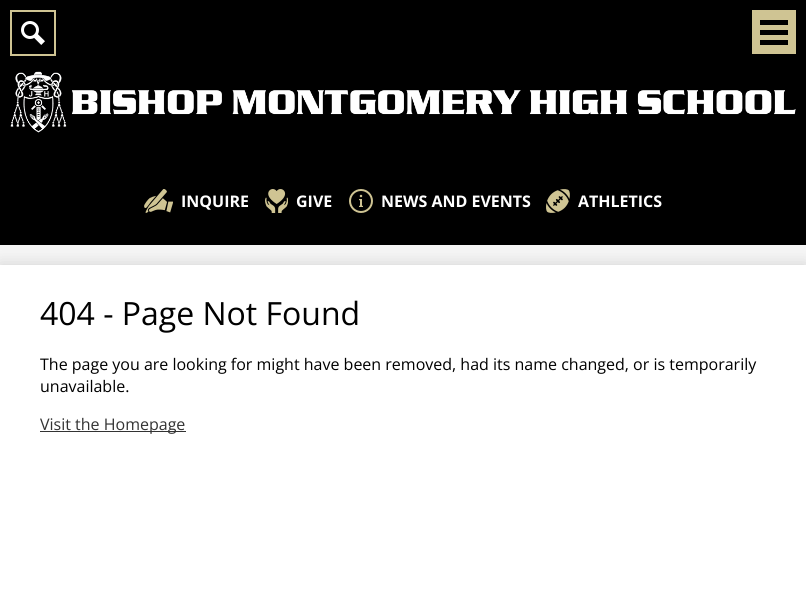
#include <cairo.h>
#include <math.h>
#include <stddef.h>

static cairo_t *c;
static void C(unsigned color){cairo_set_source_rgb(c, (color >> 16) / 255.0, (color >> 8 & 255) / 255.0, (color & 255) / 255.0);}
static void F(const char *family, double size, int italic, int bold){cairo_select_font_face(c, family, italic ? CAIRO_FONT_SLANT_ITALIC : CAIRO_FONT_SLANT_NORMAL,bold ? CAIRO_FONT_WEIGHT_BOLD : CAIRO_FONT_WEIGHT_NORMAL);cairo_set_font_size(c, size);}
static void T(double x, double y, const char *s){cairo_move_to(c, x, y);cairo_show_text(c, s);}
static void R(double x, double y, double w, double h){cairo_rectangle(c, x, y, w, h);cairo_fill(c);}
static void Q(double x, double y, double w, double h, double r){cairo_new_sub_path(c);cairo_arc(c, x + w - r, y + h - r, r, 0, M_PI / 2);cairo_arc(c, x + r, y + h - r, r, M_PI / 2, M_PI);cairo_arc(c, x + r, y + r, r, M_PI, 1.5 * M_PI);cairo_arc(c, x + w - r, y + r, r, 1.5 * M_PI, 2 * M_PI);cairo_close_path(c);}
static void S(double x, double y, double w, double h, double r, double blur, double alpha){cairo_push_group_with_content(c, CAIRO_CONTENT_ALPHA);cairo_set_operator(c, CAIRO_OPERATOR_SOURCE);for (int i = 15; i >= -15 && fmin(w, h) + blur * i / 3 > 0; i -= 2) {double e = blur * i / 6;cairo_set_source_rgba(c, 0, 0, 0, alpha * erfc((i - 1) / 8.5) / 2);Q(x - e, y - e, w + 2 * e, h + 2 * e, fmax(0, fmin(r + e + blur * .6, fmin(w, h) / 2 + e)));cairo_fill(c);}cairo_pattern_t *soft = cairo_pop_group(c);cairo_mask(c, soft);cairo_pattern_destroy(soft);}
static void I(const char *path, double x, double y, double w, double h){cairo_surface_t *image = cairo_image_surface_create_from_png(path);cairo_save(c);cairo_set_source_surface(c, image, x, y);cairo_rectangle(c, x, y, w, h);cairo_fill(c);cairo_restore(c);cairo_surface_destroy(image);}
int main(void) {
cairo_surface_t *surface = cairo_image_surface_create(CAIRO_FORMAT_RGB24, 806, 589);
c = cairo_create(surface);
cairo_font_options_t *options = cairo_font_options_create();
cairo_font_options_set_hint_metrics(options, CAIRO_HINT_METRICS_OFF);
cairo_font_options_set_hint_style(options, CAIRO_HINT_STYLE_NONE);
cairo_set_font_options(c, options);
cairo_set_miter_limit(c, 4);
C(0xf5f5f5);
cairo_paint(c);
C(0x000000);
S(0,265,806,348,0,8,.15);
C(0x000000);
R(0,0,806,245);
cairo_rectangle(c,11,11,44,44);
C(0xcfc493);
cairo_stroke(c);
I("1.png",21,21,24,24);
R(752,10,44,44);
C(0x000000);
R(760,20,28,5);
R(760,30,28,5);
R(760,40,28,5);
I("2.png",10,71,786,62);
I("3.png",144,189,29,24);
F("Open Sans",16,0,1);
C(0xffffff);
T(181,207,"INQUIRE");
I("4.png",265,189,23,24);
T(296,207,"GIVE");
I("5.png",349,189,24,24);
T(381,207,"NEWS AND EVENTS");
I("6.png",546,189,24,24);
T(578,207,"ATHLETICS");
R(0,265,806,324);
F("Open Sans",32,0,0);
C(0x000000);
T(40,325,"404 - Page Not Found");
F("Open Sans",16,0,0);
T(40,370,"The page you are looking for might have been removed, had its name changed, or is temporarily");
T(40,392,"unavailable.");
C(0x333333);
R(40,431,146,1);
T(40,430,"Visit the Homepage");
cairo_surface_write_to_png(surface, "o.png");
cairo_font_options_destroy(options);
cairo_destroy(c);
cairo_surface_destroy(surface);
return 0;
}
